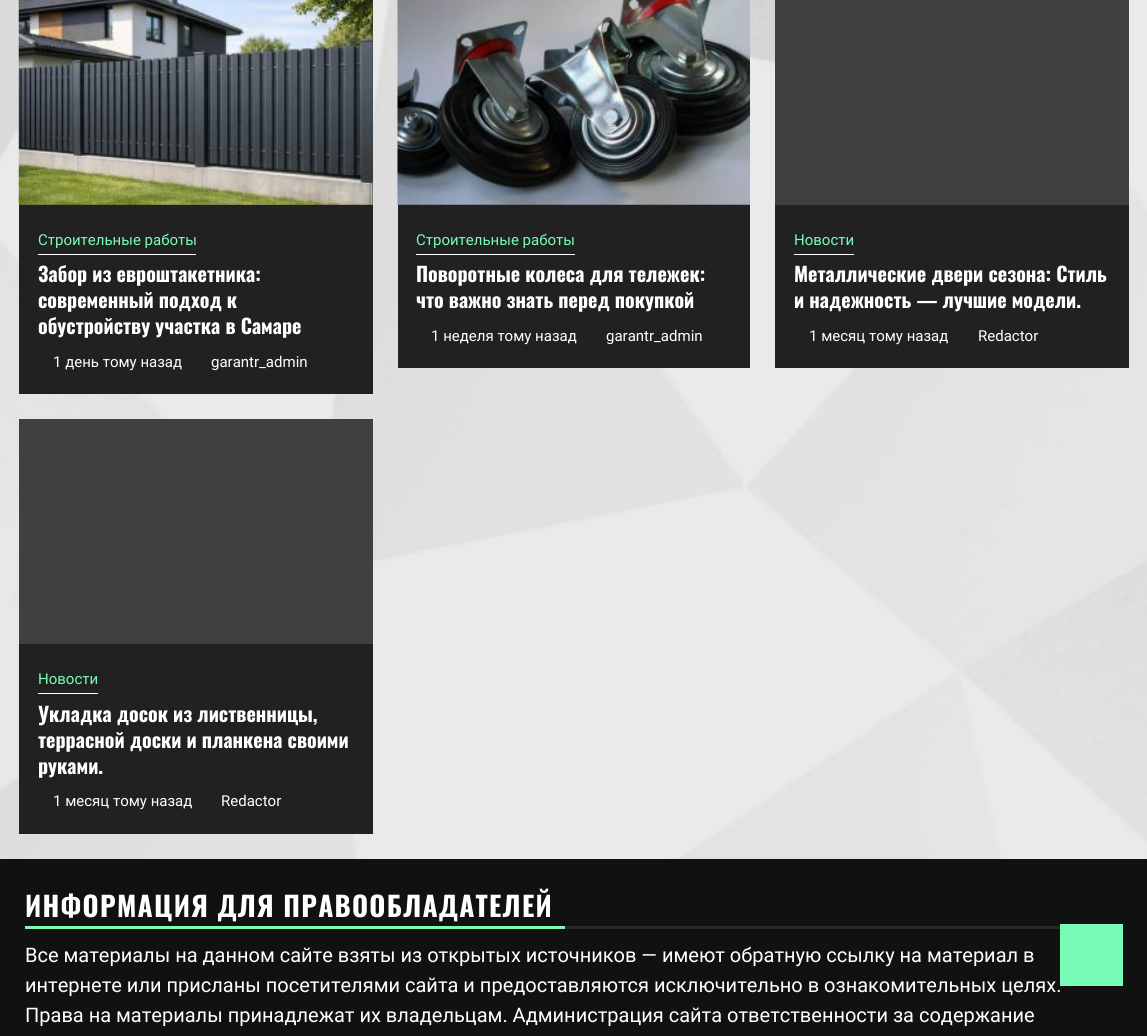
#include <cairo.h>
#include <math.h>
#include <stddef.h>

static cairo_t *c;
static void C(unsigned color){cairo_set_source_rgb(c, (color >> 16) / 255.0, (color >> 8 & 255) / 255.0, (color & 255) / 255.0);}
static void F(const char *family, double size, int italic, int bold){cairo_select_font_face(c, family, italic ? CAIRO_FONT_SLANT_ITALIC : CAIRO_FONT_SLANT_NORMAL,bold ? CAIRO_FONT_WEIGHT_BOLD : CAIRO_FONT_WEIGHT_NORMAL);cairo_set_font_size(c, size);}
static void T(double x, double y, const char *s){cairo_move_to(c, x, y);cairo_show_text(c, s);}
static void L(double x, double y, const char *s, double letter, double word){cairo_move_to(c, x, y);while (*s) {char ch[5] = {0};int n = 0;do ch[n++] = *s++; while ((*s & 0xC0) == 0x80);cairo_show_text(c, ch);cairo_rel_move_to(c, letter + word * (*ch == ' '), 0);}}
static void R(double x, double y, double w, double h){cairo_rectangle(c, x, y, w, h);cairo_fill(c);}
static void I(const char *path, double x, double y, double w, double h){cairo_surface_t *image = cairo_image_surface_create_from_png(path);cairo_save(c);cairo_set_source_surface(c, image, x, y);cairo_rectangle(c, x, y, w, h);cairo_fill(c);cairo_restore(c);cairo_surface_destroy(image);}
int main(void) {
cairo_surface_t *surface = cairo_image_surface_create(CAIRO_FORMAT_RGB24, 1147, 1036);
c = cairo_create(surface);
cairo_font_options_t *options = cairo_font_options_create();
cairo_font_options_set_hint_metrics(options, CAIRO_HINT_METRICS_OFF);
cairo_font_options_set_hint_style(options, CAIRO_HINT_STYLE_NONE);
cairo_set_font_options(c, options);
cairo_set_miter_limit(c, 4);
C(0xffffff);
cairo_paint(c);
I("1.png",0,0,1147,859);
C(0x212121);
R(19,205,354,189);
C(0x404040);
R(19,0,354,205);
I("2.png",18,0,355,205);
C(0xffffff);
R(38,254,158,1);
F("Roboto",15,0,0);
C(0x78fbb7);
T(38,245,"Строительные работы");
F("Oswald",20,0,1);
C(0xffffff);
T(38,282,"Забор из евроштакетника:");
T(38,308,"современный подход к");
T(38,334,"обустройству участка в Самаре");
F("Roboto",15,0,0);
T(53,367,"1 день тому назад");
T(211,367,"garantr_admin");
C(0x212121);
R(398,204,352,164);
I("3.png",397,0,353,205);
C(0xffffff);
R(416,254,159,1);
C(0x78fbb7);
T(416,245,"Строительные работы");
F("Oswald",20,0,1);
C(0xffffff);
T(416,282,"Поворотные колеса для тележек:");
T(416,308,"что важно знать перед покупкой");
F("Roboto",15,0,0);
T(431,341,"1 неделя тому назад");
T(606,341,"garantr_admin");
C(0x212121);
R(775,205,354,163);
C(0x404040);
R(775,0,354,205);
C(0xffffff);
R(794,254,60,1);
C(0x78fbb7);
T(794,245,"Новости");
F("Oswald",20,0,1);
C(0xffffff);
T(794,282,"Металлические двери сезона: Стиль");
T(794,308,"и надежность — лучшие модели.");
F("Roboto",15,0,0);
T(809,341,"1 месяц тому назад");
T(978,341,"Redactor");
C(0x212121);
R(19,644,354,190);
C(0x404040);
R(19,419,354,225);
C(0xffffff);
R(38,693,60,1);
C(0x78fbb7);
T(38,684,"Новости");
F("Oswald",20,0,1);
C(0xffffff);
T(38,722,"Укладка досок из лиственницы,");
T(38,748,"террасной доски и планкена своими");
T(38,774,"руками.");
F("Roboto",15,0,0);
T(53,806,"1 месяц тому назад");
T(221,806,"Redactor");
C(0x111111);
R(0,859,1147,177);
C(0x78fbb7);
R(25,926,540,3);
F("Oswald",27.5,0,1);
C(0xffffff);
L(25,917,"ИНФОРМАЦИЯ ДЛЯ ПРАВООБЛАДАТЕЛЕЙ",1.25,0);
C(0x292929);
R(565,926,495,3);
F("Roboto",20,0,0);
C(0xffffff);
T(25,962,"Все материалы на данном сайте взяты из открытых источников — имеют обратную ссылку на материал в");
T(25,992,"интернете или присланы посетителями сайта и предоставляются исключительно в ознакомительных целях.");
T(25,1022,"Права на материалы принадлежат их владельцам. Администрация сайта ответственности за содержание");
C(0x78fbb7);
R(1060,924,63,62);
cairo_surface_write_to_png(surface, "o.png");
cairo_font_options_destroy(options);
cairo_destroy(c);
cairo_surface_destroy(surface);
return 0;
}
